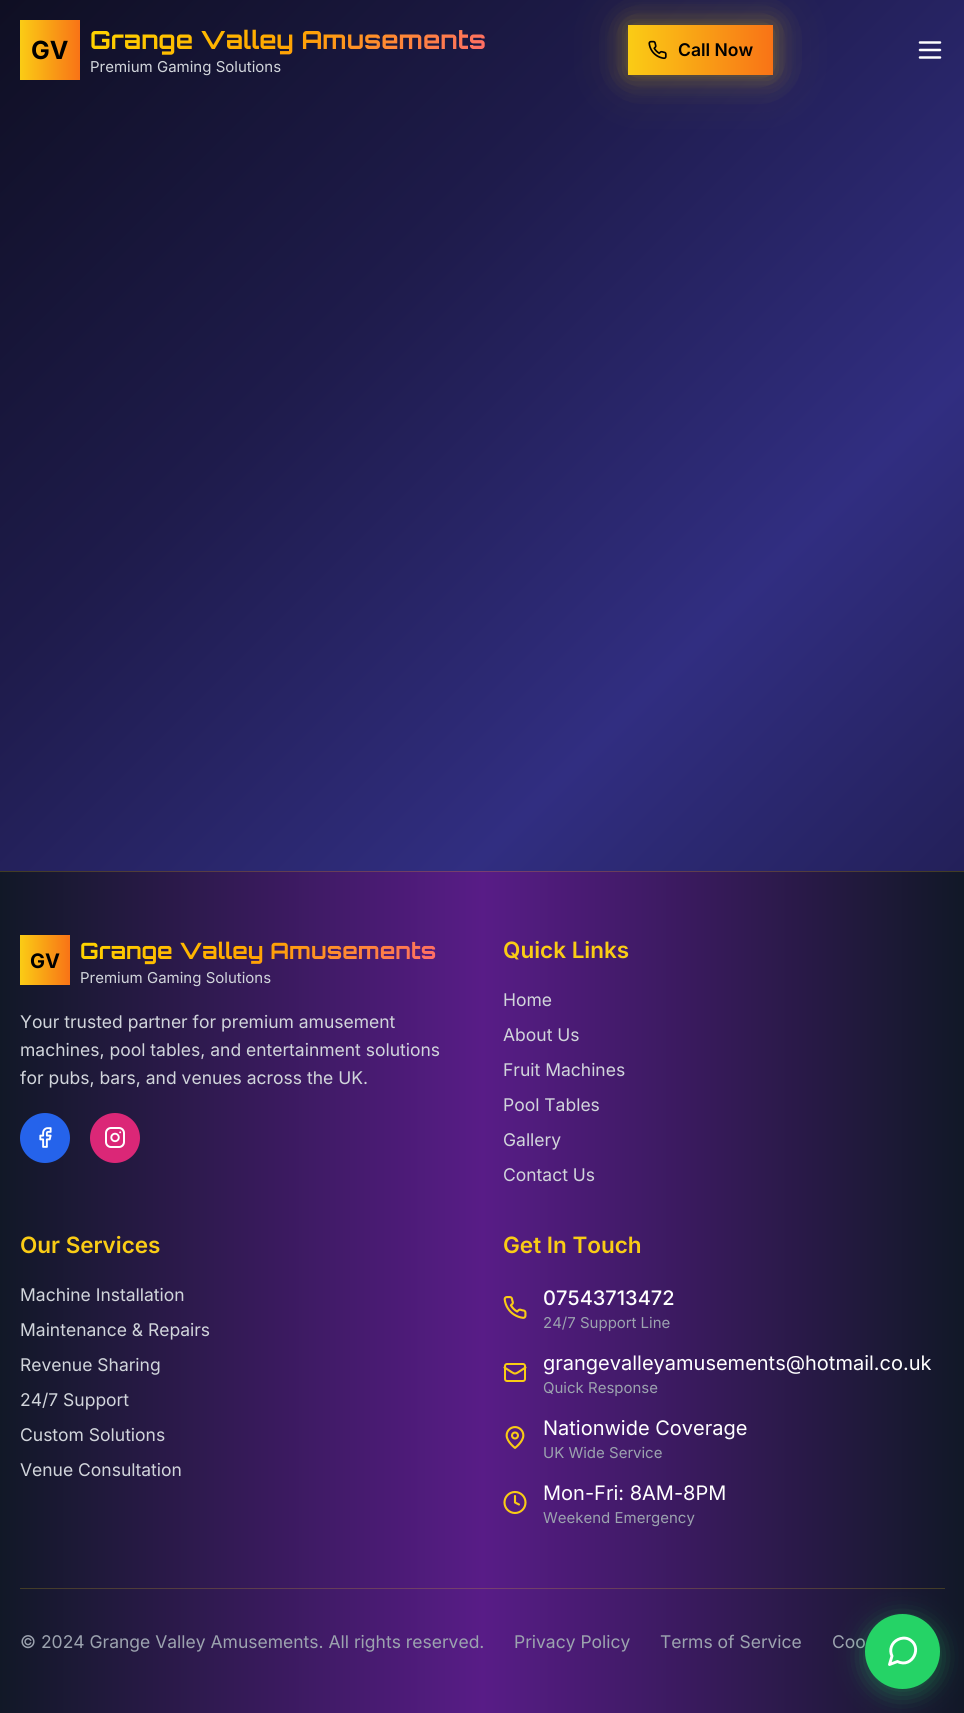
#include <cairo.h>
#include <math.h>
#include <stddef.h>

static cairo_t *c;
static void C(unsigned color){cairo_set_source_rgb(c, (color >> 16) / 255.0, (color >> 8 & 255) / 255.0, (color & 255) / 255.0);}
static void F(const char *family, double size, int italic, int bold){cairo_select_font_face(c, family, italic ? CAIRO_FONT_SLANT_ITALIC : CAIRO_FONT_SLANT_NORMAL,bold ? CAIRO_FONT_WEIGHT_BOLD : CAIRO_FONT_WEIGHT_NORMAL);cairo_set_font_size(c, size);}
static void T(double x, double y, const char *s){cairo_move_to(c, x, y);cairo_show_text(c, s);}
static void R(double x, double y, double w, double h){cairo_rectangle(c, x, y, w, h);cairo_fill(c);}
static void Q(double x, double y, double w, double h, double r){cairo_new_sub_path(c);cairo_arc(c, x + w - r, y + h - r, r, 0, M_PI / 2);cairo_arc(c, x + r, y + h - r, r, M_PI / 2, M_PI);cairo_arc(c, x + r, y + r, r, M_PI, 1.5 * M_PI);cairo_arc(c, x + w - r, y + r, r, 1.5 * M_PI, 2 * M_PI);cairo_close_path(c);}
static void S(double x, double y, double w, double h, double r, double blur, double alpha){cairo_push_group_with_content(c, CAIRO_CONTENT_ALPHA);cairo_set_operator(c, CAIRO_OPERATOR_SOURCE);for (int i = 15; i >= -15 && fmin(w, h) + blur * i / 3 > 0; i -= 2) {double e = blur * i / 6;cairo_set_source_rgba(c, 0, 0, 0, alpha * erfc((i - 1) / 8.5) / 2);Q(x - e, y - e, w + 2 * e, h + 2 * e, fmax(0, fmin(r + e + blur * .6, fmin(w, h) / 2 + e)));cairo_fill(c);}cairo_pattern_t *soft = cairo_pop_group(c);cairo_mask(c, soft);cairo_pattern_destroy(soft);}
static void I(const char *path, double x, double y, double w, double h){cairo_surface_t *image = cairo_image_surface_create_from_png(path);cairo_save(c);cairo_set_source_surface(c, image, x, y);cairo_rectangle(c, x, y, w, h);cairo_fill(c);cairo_restore(c);cairo_surface_destroy(image);}
int main(void) {
cairo_surface_t *surface = cairo_image_surface_create(CAIRO_FORMAT_RGB24, 964, 1713);
c = cairo_create(surface);
cairo_font_options_t *options = cairo_font_options_create();
cairo_font_options_set_hint_metrics(options, CAIRO_HINT_METRICS_OFF);
cairo_font_options_set_hint_style(options, CAIRO_HINT_STYLE_NONE);
cairo_set_font_options(c, options);
cairo_set_miter_limit(c, 4);
cairo_pattern_t *gradient;
C(0xffffff);
cairo_paint(c);
gradient = cairo_pattern_create_linear(-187,187,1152,1527);
cairo_pattern_add_color_stop_rgba(gradient,0,0.059,0.059,0.137,1);
cairo_pattern_add_color_stop_rgba(gradient,.25,0.118,0.106,0.294,1);
cairo_pattern_add_color_stop_rgba(gradient,.5,0.192,0.18,0.506,1);
cairo_pattern_add_color_stop_rgba(gradient,.75,0.118,0.106,0.294,1);
cairo_pattern_add_color_stop_rgba(gradient,1,0.059,0.059,0.137,1);
cairo_set_source(c,gradient);
cairo_pattern_destroy(gradient);
R(0,0,964,871);
gradient = cairo_pattern_create_linear(20,50,80,50);
cairo_pattern_add_color_stop_rgba(gradient,0,0.98,0.8,0.082,1);
cairo_pattern_add_color_stop_rgba(gradient,1,0.976,0.451,0.086,1);
cairo_set_source(c,gradient);
cairo_pattern_destroy(gradient);
R(20,20,60,60);
F("Inter",25,0,1);
C(0x000000);
T(31,59,"GV");
F("Orbitron",25,0,1);
gradient = cairo_pattern_create_linear(180,-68,396,148);
cairo_pattern_add_color_stop_rgba(gradient,0,1,0.843,0,1);
cairo_pattern_add_color_stop_rgba(gradient,.5,1,0.647,0,1);
cairo_pattern_add_color_stop_rgba(gradient,1,1,0.42,0.42,1);
cairo_set_source(c,gradient);
cairo_pattern_destroy(gradient);
T(90,49,"Grange Valley Amusements");
F("Inter",15,0,0);
C(0xd1d5db);
T(90,72,"Premium Gaming Solutions");
C(0xffd700);
S(628,25,145,50,0,25,.2);
S(628,25,145,50,0,12.5,.3);
gradient = cairo_pattern_create_linear(628,50,773,50);
cairo_pattern_add_color_stop_rgba(gradient,0,0.98,0.8,0.082,1);
cairo_pattern_add_color_stop_rgba(gradient,1,0.976,0.451,0.086,1);
cairo_set_source(c,gradient);
cairo_pattern_destroy(gradient);
R(628,25,145,50);
I("1.png",648,40,19,20);
F("Inter SemiBold",17.5,0,0);
C(0x000000);
T(678,56,"Call Now");
cairo_new_path(c);
cairo_move_to(c,920,50);
cairo_line_to(c,940,50);
cairo_move_to(c,920,42.5);
cairo_line_to(c,940,42.5);
cairo_move_to(c,920,57.5);
cairo_line_to(c,940,57.5);
C(0xffffff);
cairo_set_line_width(c,2.5);
cairo_set_line_cap(c,CAIRO_LINE_CAP_ROUND);
cairo_set_line_join(c,CAIRO_LINE_JOIN_ROUND);
cairo_stroke(c);
gradient = cairo_pattern_create_linear(0,1293,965,1293);
cairo_pattern_add_color_stop_rgba(gradient,0,0.067,0.094,0.153,1);
cairo_pattern_add_color_stop_rgba(gradient,.5,0.345,0.11,0.529,1);
cairo_pattern_add_color_stop_rgba(gradient,1,0.067,0.094,0.153,1);
cairo_set_source(c,gradient);
cairo_pattern_destroy(gradient);
R(0,872,964,841);
gradient = cairo_pattern_create_linear(0,1293,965,1293);
cairo_pattern_add_color_stop_rgba(gradient,0,0.251,0.235,0.137,1);
cairo_pattern_add_color_stop_rgba(gradient,.5,0.471,0.247,0.439,1);
cairo_pattern_add_color_stop_rgba(gradient,1,0.251,0.235,0.137,1);
cairo_set_source(c,gradient);
cairo_pattern_destroy(gradient);
R(20,1588,925,1);
R(0,871,964,1);
gradient = cairo_pattern_create_linear(20,960,70,960);
cairo_pattern_add_color_stop_rgba(gradient,0,0.98,0.8,0.082,1);
cairo_pattern_add_color_stop_rgba(gradient,1,0.976,0.451,0.086,1);
cairo_set_source(c,gradient);
cairo_pattern_destroy(gradient);
R(20,935,50,50);
F("Inter",20,0,1);
C(0x000000);
T(30,968,"GV");
F("Orbitron",22.5,0,1);
gradient = cairo_pattern_create_linear(162,854,354,1046);
cairo_pattern_add_color_stop_rgba(gradient,0,1,0.843,0,1);
cairo_pattern_add_color_stop_rgba(gradient,.5,1,0.647,0,1);
cairo_pattern_add_color_stop_rgba(gradient,1,1,0.42,0.42,1);
cairo_set_source(c,gradient);
cairo_pattern_destroy(gradient);
T(80,959,"Grange Valley Amusements");
F("Inter",15,0,0);
C(0xd1d5db);
T(80,983,"Premium Gaming Solutions");
F("Inter",17.5,0,0);
T(20,1028,"Your trusted partner for premium amusement");
T(20,1056,"machines, pool tables, and entertainment solutions");
T(20,1084,"for pubs, bars, and venues across the UK.");
C(0x2563eb);
cairo_new_path(c);
cairo_arc(c,45,1138,25,0,2 * M_PI);
cairo_fill(c);
I("2.png",39,1127,13,21);
C(0xdb2777);
cairo_arc(c,115,1138,25,0,2 * M_PI);
cairo_fill(c);
I("3.png",105,1127,20,21);
F("Inter SemiBold",22.5,0,0);
C(0xfacc15);
T(503,958,"Quick Links");
F("Inter",17.5,0,0);
C(0xd1d5db);
T(503,1006,"Home");
T(503,1041,"About Us");
T(503,1076,"Fruit Machines");
T(503,1111,"Pool Tables");
T(503,1146,"Gallery");
T(503,1181,"Contact Us");
F("Inter SemiBold",22.5,0,0);
C(0xfacc15);
T(20,1253,"Our Services");
F("Inter",17.5,0,0);
C(0xd1d5db);
T(20,1301,"Machine Installation");
T(20,1336,"Maintenance & Repairs");
T(20,1371,"Revenue Sharing");
T(20,1406,"24/7 Support");
T(20,1441,"Custom Solutions");
T(20,1476,"Venue Consultation");
F("Inter SemiBold",22.5,0,0);
C(0xfacc15);
T(503,1253,"Get In Touch");
I("4.png",503,1296,24,23);
F("Inter Medium",20,0,0);
C(0xffffff);
T(543,1305,"07543713472");
F("Inter",15,0,0);
C(0x9ca3af);
T(543,1328,"24/7 Support Line");
Q(505,1364,20,17,2);
C(0xfacc15);
cairo_set_line_width(c,2);
cairo_set_line_cap(c,CAIRO_LINE_CAP_BUTT);
cairo_set_line_join(c,CAIRO_LINE_JOIN_MITER);
cairo_stroke(c);
cairo_new_path(c);
cairo_move_to(c,525.5,1367.5);
cairo_curve_to(c,512.5,1375.5,517.5,1375.5,504.5,1367.5);
cairo_set_line_width(c,2.1);
cairo_set_line_cap(c,CAIRO_LINE_CAP_ROUND);
cairo_set_line_join(c,CAIRO_LINE_JOIN_ROUND);
cairo_stroke(c);
F("Inter",20,0,0);
C(0xffffff);
T(543,1370,"grangevalleyamusements@hotmail.co.uk");
F("Inter",15,0,0);
C(0x9ca3af);
T(543,1393,"Quick Response");
I("5.png",505,1426,20,23);
F("Inter",20,0,0);
C(0xffffff);
T(543,1435,"Nationwide Coverage");
F("Inter",15,0,0);
C(0x9ca3af);
T(543,1458,"UK Wide Service");
cairo_new_path(c);
cairo_arc(c,515,1502.5,10.5,0,2 * M_PI);
C(0xfacc15);
cairo_set_line_cap(c,CAIRO_LINE_CAP_BUTT);
cairo_set_line_join(c,CAIRO_LINE_JOIN_MITER);
cairo_stroke(c);
cairo_new_path(c);
cairo_move_to(c,515,1496);
cairo_line_to(c,515,1502.5);
cairo_line_to(c,519,1504.5);
cairo_set_line_cap(c,CAIRO_LINE_CAP_ROUND);
cairo_set_line_join(c,CAIRO_LINE_JOIN_ROUND);
cairo_stroke(c);
F("Inter",20,0,0);
C(0xffffff);
T(543,1500,"Mon-Fri: 8AM-8PM");
F("Inter",15,0,0);
C(0x9ca3af);
T(543,1523,"Weekend Emergency");
F("Inter",17.5,0,0);
T(20,1648,"© 2024 Grange Valley Amusements. All rights reserved.");
T(514,1648,"Privacy Policy");
T(660,1648,"Terms of Service");
T(832,1648,"Coo");
C(0x25d366);
S(865,1619,75,75,37.5,12.5,.4);
C(0x25d366);
cairo_arc(c,902.5,1651.5,37.5,0,2 * M_PI);
cairo_fill(c);
cairo_new_path(c);
cairo_move_to(c,889.5,1664.5);
cairo_line_to(c,892,1656);
cairo_curve_to(c,889,1650,891.5,1642.5,898,1639.5);
cairo_curve_to(c,901,1638,905,1637.5,908.5,1639);
cairo_curve_to(c,923.5,1646,912.5,1669,897.5,1661.5);
cairo_close_path(c);
C(0xffffff);
cairo_set_line_width(c,2.9);
cairo_stroke(c);
cairo_surface_write_to_png(surface, "o.png");
cairo_font_options_destroy(options);
cairo_destroy(c);
cairo_surface_destroy(surface);
return 0;
}
